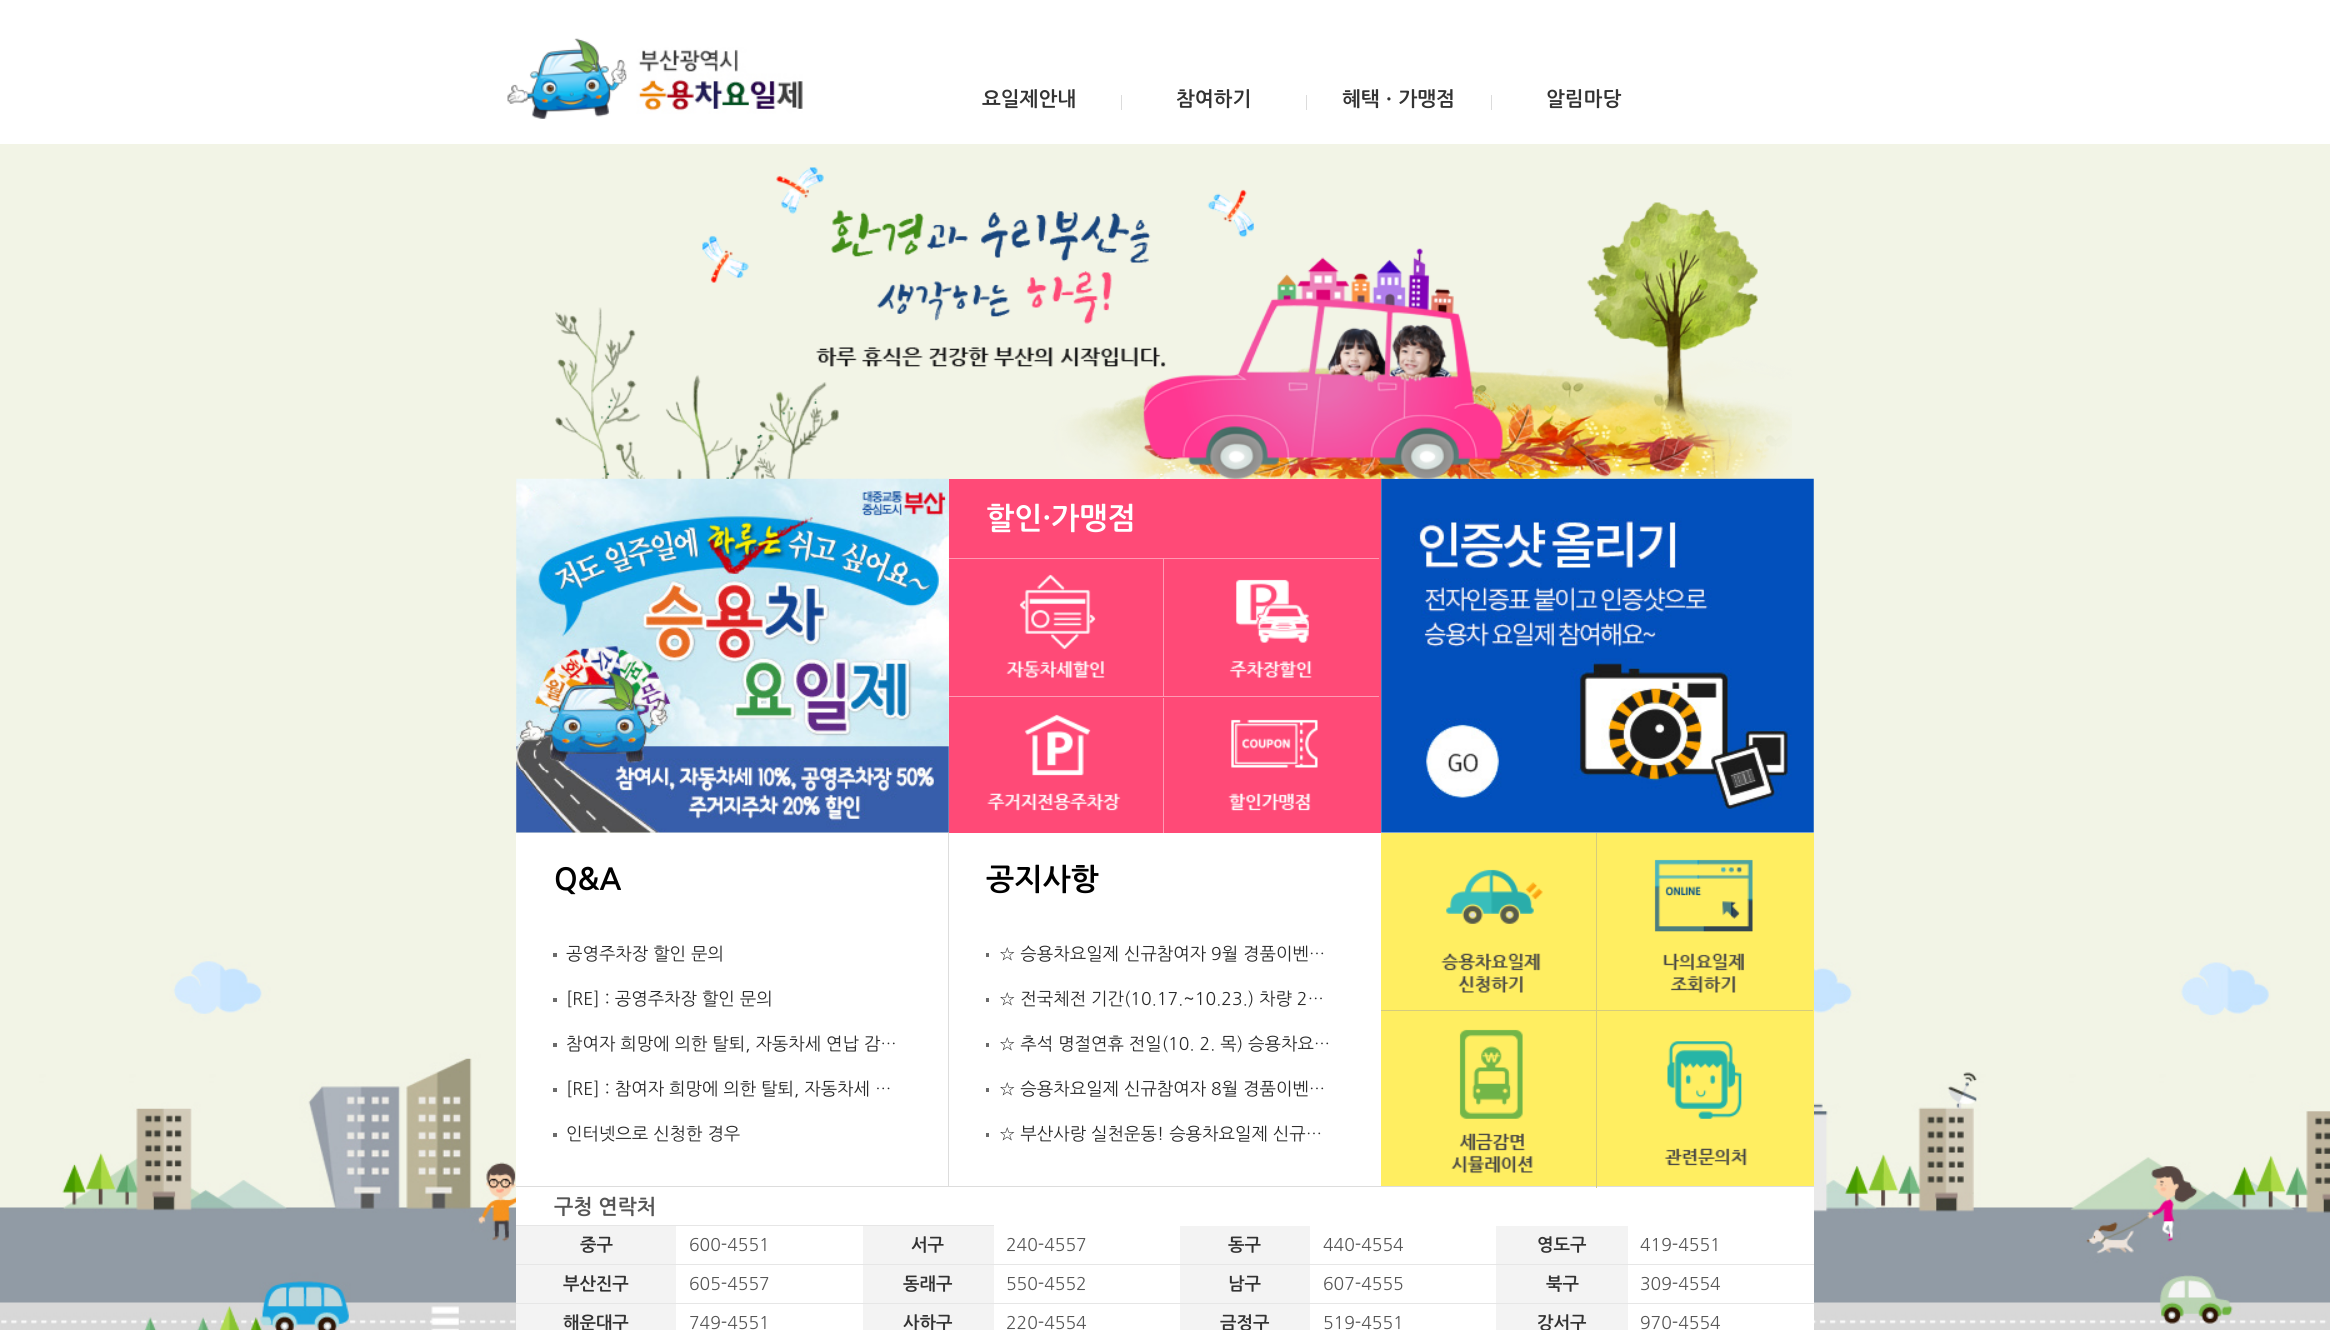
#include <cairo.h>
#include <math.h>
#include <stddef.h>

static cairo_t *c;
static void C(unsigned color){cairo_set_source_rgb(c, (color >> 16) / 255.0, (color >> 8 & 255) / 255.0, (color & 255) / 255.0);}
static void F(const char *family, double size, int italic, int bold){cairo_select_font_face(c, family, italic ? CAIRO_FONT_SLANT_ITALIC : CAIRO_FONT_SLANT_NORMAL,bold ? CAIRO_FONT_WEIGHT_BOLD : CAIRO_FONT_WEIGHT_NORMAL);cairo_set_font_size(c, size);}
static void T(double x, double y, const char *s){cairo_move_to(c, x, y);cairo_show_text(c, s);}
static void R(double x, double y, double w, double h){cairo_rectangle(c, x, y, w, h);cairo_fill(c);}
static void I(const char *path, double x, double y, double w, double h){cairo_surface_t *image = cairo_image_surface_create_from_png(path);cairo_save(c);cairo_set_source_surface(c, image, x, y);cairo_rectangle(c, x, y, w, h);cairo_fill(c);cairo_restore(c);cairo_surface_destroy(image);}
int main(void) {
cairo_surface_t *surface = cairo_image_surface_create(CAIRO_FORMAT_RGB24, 2330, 1330);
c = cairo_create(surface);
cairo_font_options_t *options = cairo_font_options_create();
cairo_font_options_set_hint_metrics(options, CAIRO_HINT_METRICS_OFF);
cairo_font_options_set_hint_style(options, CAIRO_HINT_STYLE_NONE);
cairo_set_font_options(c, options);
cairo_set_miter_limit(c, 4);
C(0xffffff);
cairo_paint(c);
C(0xf2f4e6);
R(0,144,2330,750);
I("1.png",507,38,296,81);
F("NanumGothic",20,0,1);
C(0x333333);
T(982,106,"요일제안내");
C(0xdcdcdc);
R(1121,95,1,15);
C(0x333333);
T(1176,106,"참여하기");
C(0xdcdcdc);
R(1306,95,1,15);
C(0x333333);
T(1342,106,"혜택ㆍ가맹점");
C(0xdcdcdc);
R(1491,95,1,15);
C(0x333333);
T(1546,106,"알림마당");
I("2.png",0,894,2330,436);
I("4.png",516,478,433,355);
I("9.png",1381,478,433,355);
I("3.png",555,167,1237,312);
C(0xff4a77);
R(949,479,432,354);
F("NanumGothic",30,0,1);
C(0xffffff);
T(986,529,"할인·가맹점");
C(0xff99b3);
R(949,558,430,1);
I("5.png",1006,574,99,105);
R(1163,559,1,137);
I("6.png",1229,579,83,100);
R(949,696,430,1);
I("7.png",987,714,134,97);
R(1163,698,1,137);
I("8.png",1228,719,90,92);
C(0xffffff);
R(516,833,432,353);
C(0xdddddd);
R(948,833,1,353);
C(0x000000);
T(554,890,"Q&A");
C(0x6b6b6b);
R(553,953,4,4);
F("NanumGothic",17.5,0,0);
C(0x2a2a2a);
T(566,960,"공영주차장 할인 문의");
C(0x6b6b6b);
R(553,998,4,4);
C(0x2a2a2a);
T(566,1005,"[RE] : 공영주차장 할인 문의");
C(0x6b6b6b);
R(553,1043,4,4);
C(0x2a2a2a);
T(566,1050,"참여자 희망에 의한 탈퇴, 자동차세 연납 감…");
C(0x6b6b6b);
R(553,1088,4,4);
C(0x2a2a2a);
T(566,1095,"[RE] : 참여자 희망에 의한 탈퇴, 자동차세 …");
C(0x6b6b6b);
R(553,1133,4,4);
C(0x2a2a2a);
T(566,1140,"인터넷으로 신청한 경우");
C(0xffffff);
R(949,833,432,353);
F("NanumGothic",30,0,1);
C(0x000000);
T(986,890,"공지사항");
C(0x6b6b6b);
R(986,953,3,4);
F("NanumGothic",17.5,0,0);
C(0x2a2a2a);
T(999,960,"☆ 승용차요일제 신규참여자 9월 경품이벤…");
C(0x6b6b6b);
R(986,998,3,4);
C(0x2a2a2a);
T(999,1005,"☆ 전국체전 기간(10.17.~10.23.) 차량 2…");
C(0x6b6b6b);
R(986,1043,3,4);
C(0x2a2a2a);
T(999,1050,"☆ 추석 명절연휴 전일(10. 2. 목) 승용차요…");
C(0x6b6b6b);
R(986,1088,3,4);
C(0x2a2a2a);
T(999,1095,"☆ 승용차요일제 신규참여자 8월 경품이벤…");
C(0x6b6b6b);
R(986,1133,3,4);
C(0x2a2a2a);
T(999,1140,"☆ 부산사랑 실천운동! 승용차요일제 신규…");
C(0xffee61);
R(1381,833,433,353);
C(0xffffff);
R(516,1187,1298,143);
C(0xdddddd);
R(516,1186,1298,1);
C(0xd6cc7c);
R(1596,833,1,355);
R(1381,1010,432,1);
I("10.png",1441,869,102,124);
I("11.png",1654,859,99,134);
I("12.png",1451,1029,82,145);
I("13.png",1664,1041,83,125);
C(0xe6e6e6);
R(516,1225,478,1);
F("NanumGothic",20.5,0,1);
C(0x565656);
T(554,1214,"구청 연락처");
C(0xf3f3f3);
R(516,1226,160,38);
C(0xe6e6e6);
R(516,1264,1298,1);
F("NanumGothic",17.5,0,1);
C(0x333333);
T(580,1251,"중구");
F("NanumGothic",17.5,0,0);
C(0x565656);
T(689,1251,"600-4551");
C(0xf3f3f3);
R(863,1226,131,38);
F("NanumGothic",17.5,0,1);
C(0x333333);
T(911,1251,"서구");
F("NanumGothic",17.5,0,0);
C(0x565656);
T(1006,1251,"240-4557");
C(0xf3f3f3);
R(1180,1226,130,38);
F("NanumGothic",17.5,0,1);
C(0x333333);
T(1228,1251,"동구");
F("NanumGothic",17.5,0,0);
C(0x565656);
T(1323,1251,"440-4554");
C(0xf3f3f3);
R(1496,1226,132,38);
F("NanumGothic",17.5,0,1);
C(0x333333);
T(1537,1251,"영도구");
F("NanumGothic",17.5,0,0);
C(0x565656);
T(1640,1251,"419-4551");
C(0xf3f3f3);
R(516,1265,160,38);
C(0xe6e6e6);
R(516,1303,1298,1);
F("NanumGothic",17.5,0,1);
C(0x333333);
T(563,1290,"부산진구");
F("NanumGothic",17.5,0,0);
C(0x565656);
T(689,1290,"605-4557");
C(0xf3f3f3);
R(863,1265,131,38);
F("NanumGothic",17.5,0,1);
C(0x333333);
T(903,1290,"동래구");
F("NanumGothic",17.5,0,0);
C(0x565656);
T(1006,1290,"550-4552");
C(0xf3f3f3);
R(1180,1265,130,38);
F("NanumGothic",17.5,0,1);
C(0x333333);
T(1228,1290,"남구");
F("NanumGothic",17.5,0,0);
C(0x565656);
T(1323,1290,"607-4555");
C(0xf3f3f3);
R(1496,1265,132,38);
F("NanumGothic",17.5,0,1);
C(0x333333);
T(1546,1290,"북구");
F("NanumGothic",17.5,0,0);
C(0x565656);
T(1640,1290,"309-4554");
C(0xf3f3f3);
R(516,1304,160,26);
F("NanumGothic",17.5,0,1);
C(0x333333);
T(563,1329,"해운대구");
F("NanumGothic",17.5,0,0);
C(0x565656);
T(689,1329,"749-4551");
C(0xf3f3f3);
R(863,1304,131,26);
F("NanumGothic",17.5,0,1);
C(0x333333);
T(903,1329,"사하구");
F("NanumGothic",17.5,0,0);
C(0x565656);
T(1006,1329,"220-4554");
C(0xf3f3f3);
R(1180,1304,130,26);
F("NanumGothic",17.5,0,1);
C(0x333333);
T(1220,1329,"금정구");
F("NanumGothic",17.5,0,0);
C(0x565656);
T(1323,1329,"519-4551");
C(0xf3f3f3);
R(1496,1304,132,26);
F("NanumGothic",17.5,0,1);
C(0x333333);
T(1537,1329,"강서구");
F("NanumGothic",17.5,0,0);
C(0x565656);
T(1640,1329,"970-4554");
cairo_surface_write_to_png(surface, "o.png");
cairo_font_options_destroy(options);
cairo_destroy(c);
cairo_surface_destroy(surface);
return 0;
}
